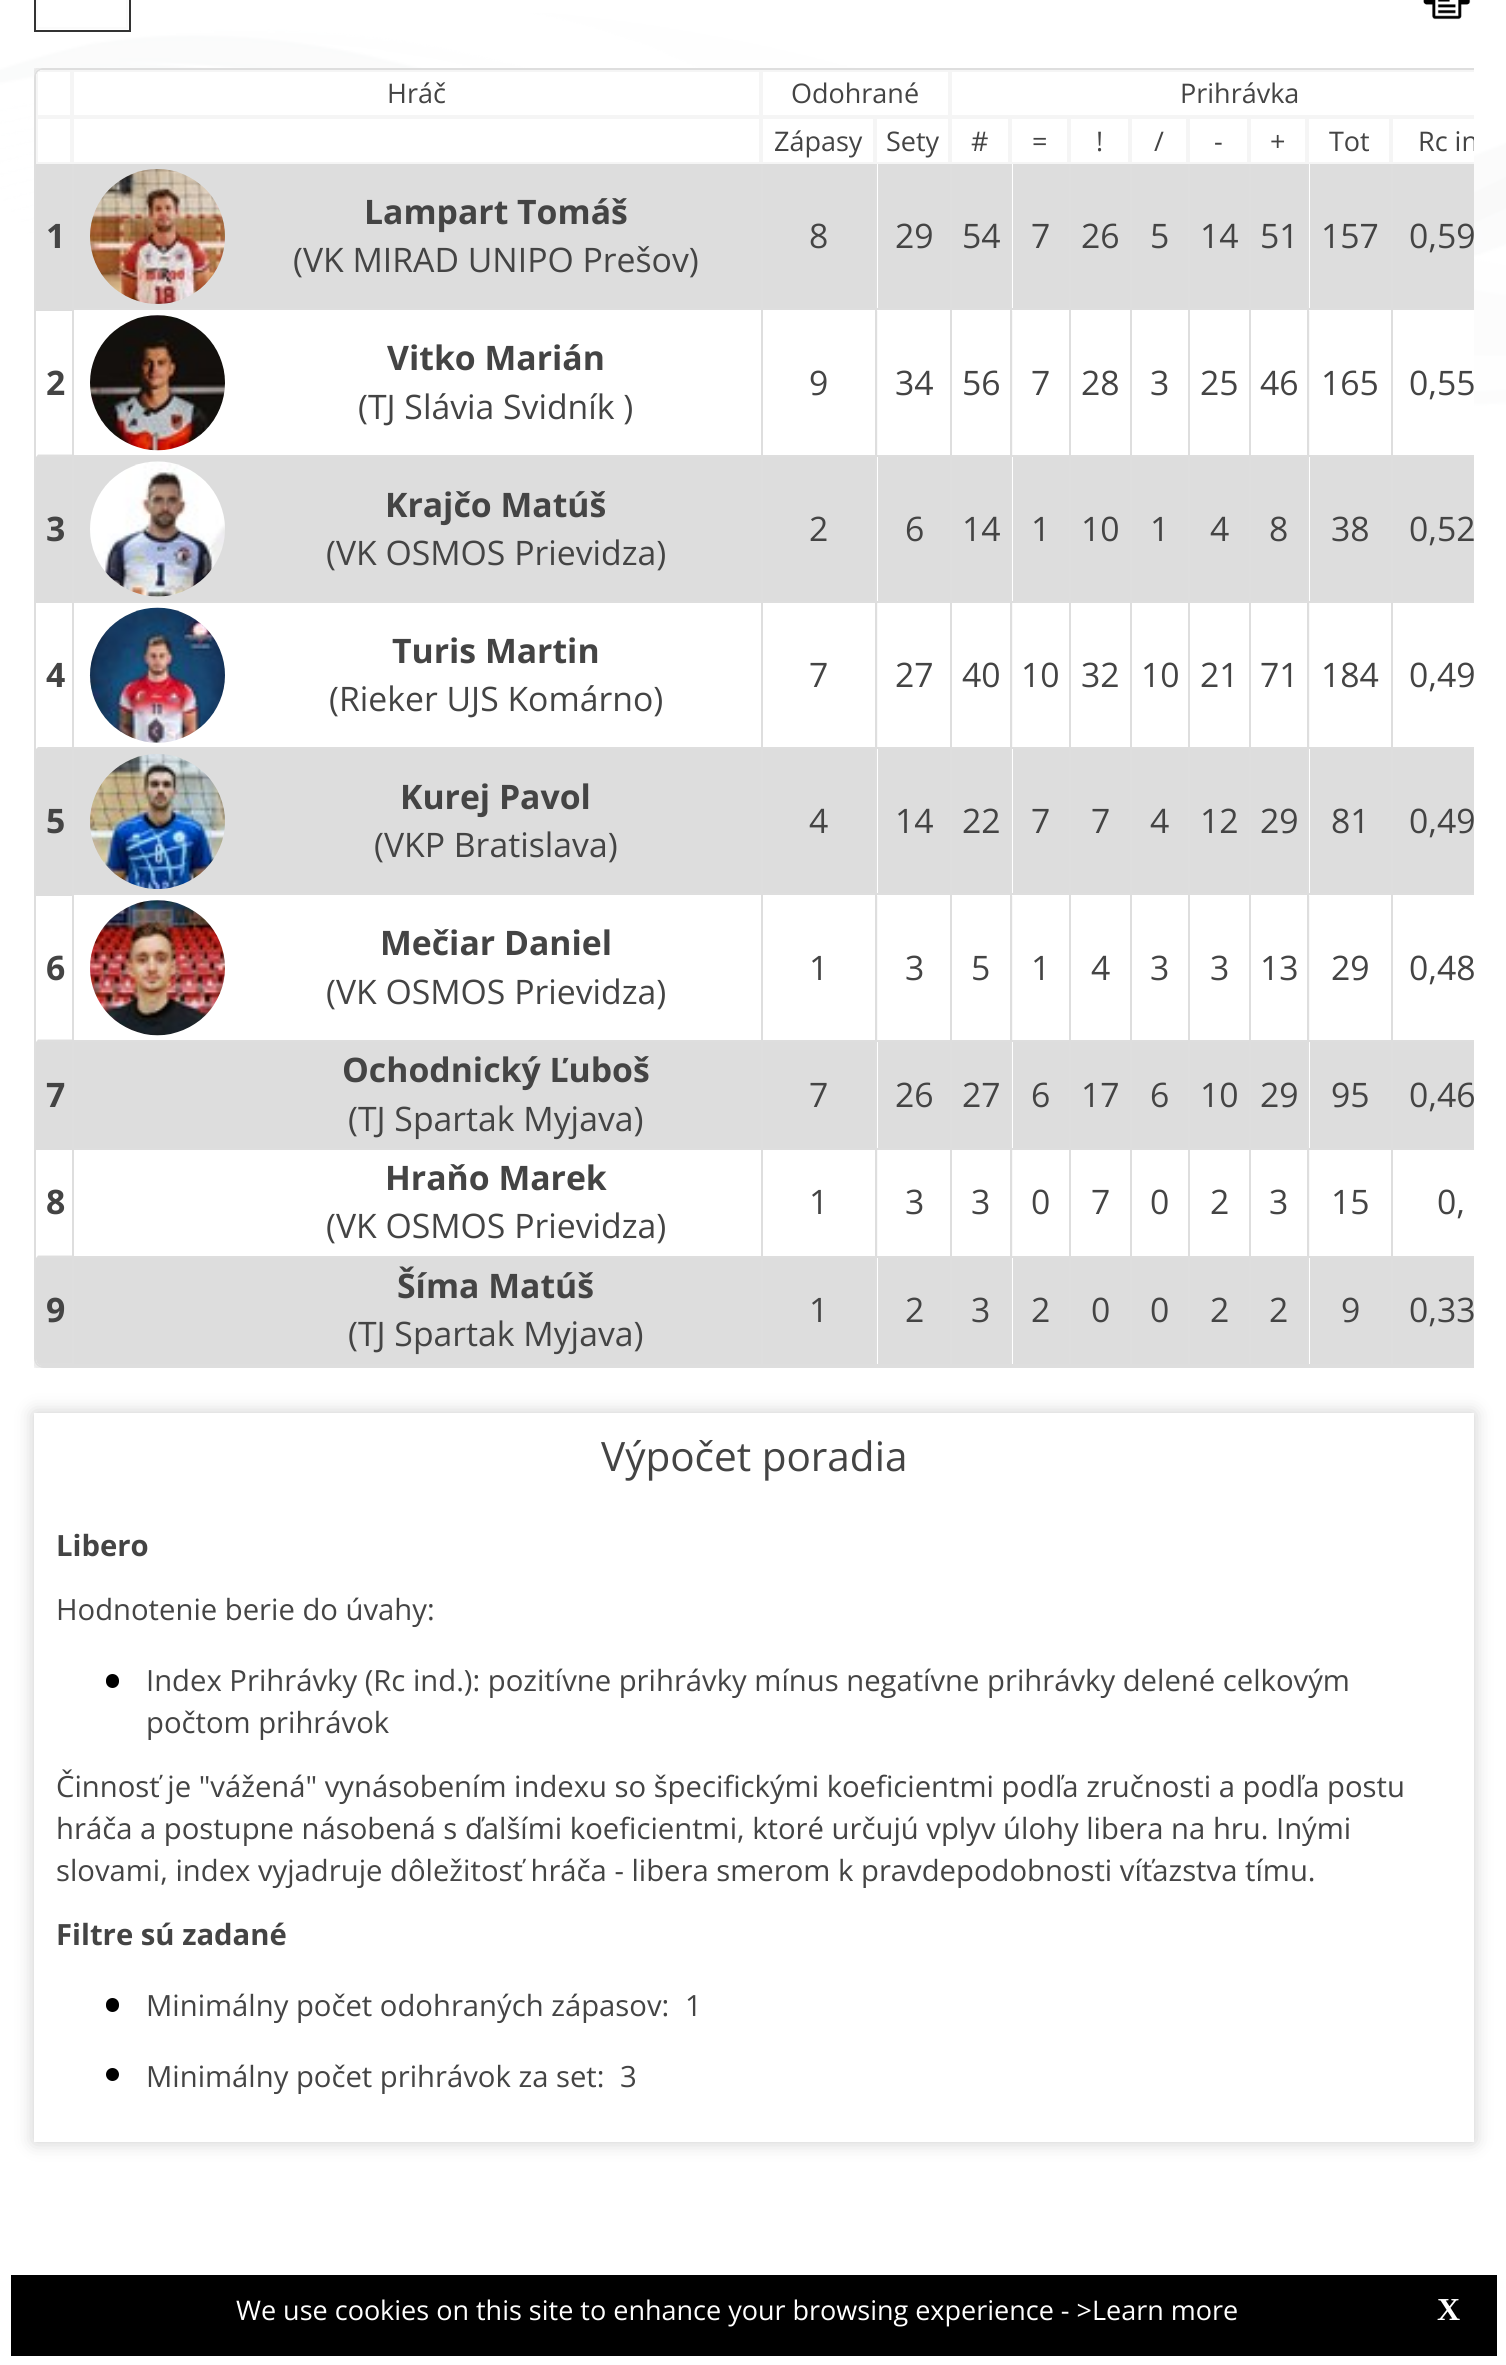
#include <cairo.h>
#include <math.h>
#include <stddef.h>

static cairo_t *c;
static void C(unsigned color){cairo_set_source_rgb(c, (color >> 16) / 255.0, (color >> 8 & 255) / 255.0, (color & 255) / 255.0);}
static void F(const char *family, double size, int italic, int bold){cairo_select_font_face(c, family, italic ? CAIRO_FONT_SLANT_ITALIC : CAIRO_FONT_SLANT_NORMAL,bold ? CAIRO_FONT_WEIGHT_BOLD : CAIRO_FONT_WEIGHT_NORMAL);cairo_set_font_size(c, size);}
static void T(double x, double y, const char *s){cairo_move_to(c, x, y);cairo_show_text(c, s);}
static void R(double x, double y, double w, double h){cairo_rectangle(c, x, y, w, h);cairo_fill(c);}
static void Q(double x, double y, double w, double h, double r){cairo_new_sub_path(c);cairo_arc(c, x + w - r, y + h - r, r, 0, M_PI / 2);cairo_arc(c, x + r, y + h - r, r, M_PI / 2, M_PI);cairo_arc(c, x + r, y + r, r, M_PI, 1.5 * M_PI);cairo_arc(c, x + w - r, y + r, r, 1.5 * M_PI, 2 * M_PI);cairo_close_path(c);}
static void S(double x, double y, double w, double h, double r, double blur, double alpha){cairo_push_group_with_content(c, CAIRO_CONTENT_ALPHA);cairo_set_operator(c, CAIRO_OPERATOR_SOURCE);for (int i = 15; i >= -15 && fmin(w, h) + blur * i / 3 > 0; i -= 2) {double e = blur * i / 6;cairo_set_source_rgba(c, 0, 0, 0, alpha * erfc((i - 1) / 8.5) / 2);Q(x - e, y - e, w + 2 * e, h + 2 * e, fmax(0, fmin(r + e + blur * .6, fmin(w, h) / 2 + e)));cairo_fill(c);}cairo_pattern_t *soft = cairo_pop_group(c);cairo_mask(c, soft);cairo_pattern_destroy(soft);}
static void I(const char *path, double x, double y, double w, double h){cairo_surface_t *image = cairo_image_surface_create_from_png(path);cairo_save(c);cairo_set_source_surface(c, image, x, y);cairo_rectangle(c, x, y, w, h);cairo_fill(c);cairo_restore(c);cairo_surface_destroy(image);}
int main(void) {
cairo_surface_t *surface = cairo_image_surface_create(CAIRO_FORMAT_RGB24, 1506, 2365);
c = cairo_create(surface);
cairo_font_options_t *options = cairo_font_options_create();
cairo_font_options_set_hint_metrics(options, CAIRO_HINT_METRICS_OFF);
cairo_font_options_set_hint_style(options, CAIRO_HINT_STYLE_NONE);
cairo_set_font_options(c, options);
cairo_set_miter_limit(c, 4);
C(0xffffff);
cairo_paint(c);
I("1.png",0,13,1506,393);
cairo_rectangle(c,37,-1,90,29);
C(0xfbfbfb);
cairo_stroke(c);
cairo_rectangle(c,35,-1,95,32);
C(0x333333);
cairo_stroke(c);
I("2.png",1423,0,48,20);
cairo_save(c);
cairo_rectangle(c,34,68,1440,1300);
cairo_clip(c);
C(0xcccccc);
S(34,68,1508,1300,9,9,1);
cairo_restore(c);
C(0xffffff);
cairo_new_path(c);
cairo_move_to(c,43,68);
cairo_line_to(c,1474,68);
cairo_line_to(c,1474,1368);
cairo_line_to(c,43,1368);
cairo_curve_to(c,38,1368,34,1364,34,1359);
cairo_line_to(c,34,77);
cairo_curve_to(c,34,72,38,68,43,68);
cairo_close_path(c);
cairo_fill(c);
cairo_save(c);
cairo_rectangle(c,34,68,1440,1300);
cairo_clip(c);
Q(35,69,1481,1298,8);
C(0xdedede);
cairo_stroke(c);
cairo_restore(c);
cairo_new_path(c);
cairo_move_to(c,43,70);
cairo_line_to(c,72,70);
cairo_line_to(c,72,117);
cairo_line_to(c,36,117);
cairo_line_to(c,36,77);
cairo_curve_to(c,36,73,39,70,43,70);
cairo_close_path(c);
cairo_fill(c);
C(0xf5f5f5);
cairo_new_path(c);
cairo_move_to(c,43,70);
cairo_curve_to(c,41,70,39,71,38,72);
cairo_line_to(c,70,72);
cairo_line_to(c,70,115);
cairo_line_to(c,38,115);
cairo_line_to(c,38,72);
cairo_curve_to(c,37,73,36,75,36,77);
cairo_line_to(c,36,117);
cairo_line_to(c,72,117);
cairo_line_to(c,72,70);
cairo_close_path(c);
cairo_fill(c);
cairo_rectangle(c,73,71,687,45);
cairo_stroke(c);
F("Open Sans",27,0,0);
C(0x444444);
T(387,103,"Hráč");
cairo_rectangle(c,762,71,187,45);
C(0xf5f5f5);
cairo_stroke(c);
C(0x444444);
T(791,103,"Odohrané");
cairo_save(c);
cairo_rectangle(c,34,68,1440,1300);
cairo_clip(c);
cairo_rectangle(c,951,71,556,45);
C(0xf5f5f5);
cairo_stroke(c);
cairo_restore(c);
T(1180,103,"Prihrávka");
cairo_rectangle(c,37,118,34,45);
C(0xf5f5f5);
cairo_stroke(c);
cairo_rectangle(c,73,118,687,45);
cairo_stroke(c);
cairo_rectangle(c,762,118,112,45);
cairo_stroke(c);
C(0x444444);
T(774,151,"Zápasy");
cairo_rectangle(c,876,118,73,45);
C(0xf5f5f5);
cairo_stroke(c);
C(0x444444);
T(886,151,"Sety");
cairo_rectangle(c,951,118,58,45);
C(0xf5f5f5);
cairo_stroke(c);
C(0x444444);
T(971,151,"#");
cairo_rectangle(c,1011,118,57,45);
C(0xf5f5f5);
cairo_stroke(c);
C(0x444444);
T(1032,151,"=");
cairo_rectangle(c,1070,118,59,45);
C(0xf5f5f5);
cairo_stroke(c);
C(0x444444);
T(1096,151,"!");
cairo_rectangle(c,1131,118,56,45);
C(0xf5f5f5);
cairo_stroke(c);
C(0x444444);
T(1154,151,"/");
cairo_rectangle(c,1189,118,59,45);
C(0xf5f5f5);
cairo_stroke(c);
C(0x444444);
T(1214,151,"-");
cairo_rectangle(c,1250,118,56,45);
C(0xf5f5f5);
cairo_stroke(c);
C(0x444444);
T(1270,151,"+");
cairo_rectangle(c,1308,118,82,45);
C(0xf5f5f5);
cairo_stroke(c);
C(0x444444);
T(1329,151,"Tot");
cairo_save(c);
cairo_rectangle(c,34,68,1440,1300);
cairo_clip(c);
cairo_rectangle(c,1392,118,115,45);
C(0xf5f5f5);
cairo_stroke(c);
C(0x444444);
T(1418,151,"Rc in");
cairo_restore(c);
C(0xdddddd);
R(36,164,36,147);
F("Open Sans",33.75,0,1);
C(0x444444);
T(46,248,"1");
C(0xdddddd);
R(74,164,687,144);
C(0xdedede);
R(72,308,1402,2);
R(72,164,2,147);
I("3.png",90,169,135,135);
C(0x444444);
T(364,224,"Lampart Tomáš");
F("Open Sans",33.75,0,0);
T(293,272,"(VK MIRAD UNIPO Prešov)");
C(0xdddddd);
R(763,164,112,144);
C(0xdedede);
R(761,164,2,147);
C(0x444444);
T(809,248,"8");
C(0xdddddd);
R(878,164,72,144);
C(0xdedede);
R(875,164,2,147);
C(0x444444);
T(895,248,"29");
C(0xdddddd);
R(952,164,58,144);
C(0xdedede);
R(950,164,2,147);
C(0x444444);
T(962,248,"54");
C(0xdddddd);
R(1013,164,56,144);
C(0xdedede);
R(1010,164,2,147);
C(0x444444);
T(1031,248,"7");
C(0xdddddd);
R(1071,164,59,144);
C(0xdedede);
R(1069,164,2,147);
C(0x444444);
T(1081,248,"26");
C(0xdddddd);
R(1132,164,56,144);
C(0xdedede);
R(1130,164,2,147);
C(0x444444);
T(1150,248,"5");
C(0xdddddd);
R(1190,164,59,144);
C(0xdedede);
R(1188,164,2,147);
C(0x444444);
T(1200,248,"14");
C(0xdddddd);
R(1251,164,56,144);
C(0xdedede);
R(1249,164,2,147);
C(0x444444);
T(1260,248,"51");
C(0xdddddd);
R(1310,164,81,144);
C(0xdedede);
R(1307,164,2,147);
C(0x444444);
T(1321,248,"157");
C(0xdddddd);
R(1393,164,81,144);
C(0xdedede);
R(1391,164,2,147);
C(0x444444);
T(1409,248,"0,59");
C(0xf9f9f9);
R(877,311,433,144);
C(0xdedede);
cairo_new_path(c);
cairo_move_to(c,72,457);
cairo_line_to(c,36,457);
cairo_line_to(c,38,454.5);
cairo_line_to(c,72,454.5);
cairo_close_path(c);
cairo_fill(c);
F("Open Sans",33.75,0,1);
C(0x444444);
T(46,395,"2");
C(0xdedede);
R(72,455,1402,2);
R(72,311,2,146);
I("4.png",90,315,135,136);
C(0x444444);
T(387,370,"Vitko Marián");
F("Open Sans",33.75,0,0);
T(358,419,"(TJ Slávia Svidník )");
C(0xdedede);
R(761,311,2,146);
C(0x444444);
T(809,395,"9");
C(0xffffff);
R(878,311,72,144);
C(0xdedede);
R(875,311,2,146);
C(0x444444);
T(895,395,"34");
C(0xffffff);
R(952,311,58,144);
C(0xdedede);
R(950,311,2,146);
C(0x444444);
T(962,395,"56");
C(0xffffff);
R(1013,311,56,144);
C(0xdedede);
R(1010,311,2,146);
C(0x444444);
T(1031,395,"7");
C(0xffffff);
R(1071,311,59,144);
C(0xdedede);
R(1069,311,2,146);
C(0x444444);
T(1081,395,"28");
C(0xffffff);
R(1132,311,56,144);
C(0xdedede);
R(1130,311,2,146);
C(0x444444);
T(1150,395,"3");
C(0xffffff);
R(1190,311,59,144);
C(0xdedede);
R(1188,311,2,146);
C(0x444444);
T(1200,395,"25");
C(0xffffff);
R(1251,311,56,144);
C(0xdedede);
R(1249,311,2,146);
C(0x444444);
T(1260,395,"46");
C(0xdedede);
R(1307,311,2,146);
C(0x444444);
T(1321,395,"165");
C(0xdedede);
R(1391,311,2,146);
C(0x444444);
T(1409,395,"0,55");
C(0xdddddd);
R(36,457,36,146);
F("Open Sans",33.75,0,1);
C(0x444444);
T(46,541,"3");
C(0xdddddd);
R(74,457,687,144);
C(0xdedede);
R(72,601,1402,2);
R(72,457,2,146);
I("5.png",90,461,135,136);
C(0x444444);
T(385,517,"Krajčo Matúš");
F("Open Sans",33.75,0,0);
T(326,565,"(VK OSMOS Prievidza)");
C(0xdddddd);
R(763,457,112,144);
C(0xdedede);
R(761,457,2,146);
C(0x444444);
T(809,541,"2");
C(0xdddddd);
R(878,457,72,144);
C(0xdedede);
R(875,457,2,146);
C(0x444444);
T(905,541,"6");
C(0xdddddd);
R(952,457,58,144);
C(0xdedede);
R(950,457,2,146);
C(0x444444);
T(962,541,"14");
C(0xdddddd);
R(1013,457,56,144);
C(0xdedede);
R(1010,457,2,146);
C(0x444444);
T(1031,541,"1");
C(0xdddddd);
R(1071,457,59,144);
C(0xdedede);
R(1069,457,2,146);
C(0x444444);
T(1081,541,"10");
C(0xdddddd);
R(1132,457,56,144);
C(0xdedede);
R(1130,457,2,146);
C(0x444444);
T(1150,541,"1");
C(0xdddddd);
R(1190,457,59,144);
C(0xdedede);
R(1188,457,2,146);
C(0x444444);
T(1210,541,"4");
C(0xdddddd);
R(1251,457,56,144);
C(0xdedede);
R(1249,457,2,146);
C(0x444444);
T(1269,541,"8");
C(0xdddddd);
R(1310,457,81,144);
C(0xdedede);
R(1307,457,2,146);
C(0x444444);
T(1331,541,"38");
C(0xdddddd);
R(1393,457,81,144);
C(0xdedede);
R(1391,457,2,146);
C(0x444444);
T(1409,541,"0,52");
C(0xf9f9f9);
R(877,603,433,144);
C(0xdedede);
cairo_new_path(c);
cairo_move_to(c,72,749);
cairo_line_to(c,36,749);
cairo_line_to(c,38,747);
cairo_line_to(c,72,747);
cairo_close_path(c);
cairo_fill(c);
F("Open Sans",33.75,0,1);
C(0x444444);
T(46,687,"4");
C(0xdedede);
R(72,747,1402,2);
R(72,603,2,146);
I("6.png",89,607,136,136);
C(0x444444);
T(392,663,"Turis Martin");
F("Open Sans",33.75,0,0);
T(329,711,"(Rieker UJS Komárno)");
C(0xdedede);
R(761,603,2,146);
C(0x444444);
T(809,687,"7");
C(0xffffff);
R(878,603,72,144);
C(0xdedede);
R(875,603,2,146);
C(0x444444);
T(895,687,"27");
C(0xffffff);
R(952,603,58,144);
C(0xdedede);
R(950,603,2,146);
C(0x444444);
T(962,687,"40");
C(0xffffff);
R(1013,603,56,144);
C(0xdedede);
R(1010,603,2,146);
C(0x444444);
T(1021,687,"10");
C(0xffffff);
R(1071,603,59,144);
C(0xdedede);
R(1069,603,2,146);
C(0x444444);
T(1081,687,"32");
C(0xffffff);
R(1132,603,56,144);
C(0xdedede);
R(1130,603,2,146);
C(0x444444);
T(1141,687,"10");
C(0xffffff);
R(1190,603,59,144);
C(0xdedede);
R(1188,603,2,146);
C(0x444444);
T(1200,687,"21");
C(0xffffff);
R(1251,603,56,144);
C(0xdedede);
R(1249,603,2,146);
C(0x444444);
T(1260,687,"71");
C(0xdedede);
R(1307,603,2,146);
C(0x444444);
T(1321,687,"184");
C(0xdedede);
R(1391,603,2,146);
C(0x444444);
T(1409,687,"0,49");
C(0xdddddd);
R(36,749,36,147);
F("Open Sans",33.75,0,1);
C(0x444444);
T(46,833,"5");
C(0xdddddd);
R(74,749,687,144);
C(0xdedede);
R(72,893,1402,2);
R(72,749,2,147);
I("7.png",90,754,135,135);
C(0x444444);
T(400,809,"Kurej Pavol");
F("Open Sans",33.75,0,0);
T(374,857,"(VKP Bratislava)");
C(0xdddddd);
R(763,749,112,144);
C(0xdedede);
R(761,749,2,147);
C(0x444444);
T(809,833,"4");
C(0xdddddd);
R(878,749,72,144);
C(0xdedede);
R(875,749,2,147);
C(0x444444);
T(895,833,"14");
C(0xdddddd);
R(952,749,58,144);
C(0xdedede);
R(950,749,2,147);
C(0x444444);
T(962,833,"22");
C(0xdddddd);
R(1013,749,56,144);
C(0xdedede);
R(1010,749,2,147);
C(0x444444);
T(1031,833,"7");
C(0xdddddd);
R(1071,749,59,144);
C(0xdedede);
R(1069,749,2,147);
C(0x444444);
T(1091,833,"7");
C(0xdddddd);
R(1132,749,56,144);
C(0xdedede);
R(1130,749,2,147);
C(0x444444);
T(1150,833,"4");
C(0xdddddd);
R(1190,749,59,144);
C(0xdedede);
R(1188,749,2,147);
C(0x444444);
T(1200,833,"12");
C(0xdddddd);
R(1251,749,56,144);
C(0xdedede);
R(1249,749,2,147);
C(0x444444);
T(1260,833,"29");
C(0xdddddd);
R(1310,749,81,144);
C(0xdedede);
R(1307,749,2,147);
C(0x444444);
T(1331,833,"81");
C(0xdddddd);
R(1393,749,81,144);
C(0xdedede);
R(1391,749,2,147);
C(0x444444);
T(1409,833,"0,49");
C(0xf9f9f9);
R(877,896,433,144);
C(0xdedede);
cairo_new_path(c);
cairo_move_to(c,72,1042);
cairo_line_to(c,36,1042);
cairo_line_to(c,38,1039.5);
cairo_line_to(c,72,1039.5);
cairo_close_path(c);
cairo_fill(c);
F("Open Sans",33.75,0,1);
C(0x444444);
T(46,980,"6");
C(0xdedede);
R(72,1040,1402,2);
R(72,896,2,146);
I("8.png",90,900,135,136);
C(0x444444);
T(380,955,"Mečiar Daniel");
F("Open Sans",33.75,0,0);
T(326,1004,"(VK OSMOS Prievidza)");
C(0xdedede);
R(761,896,2,146);
C(0x444444);
T(809,980,"1");
C(0xffffff);
R(878,896,72,144);
C(0xdedede);
R(875,896,2,146);
C(0x444444);
T(905,980,"3");
C(0xffffff);
R(952,896,58,144);
C(0xdedede);
R(950,896,2,146);
C(0x444444);
T(971,980,"5");
C(0xffffff);
R(1013,896,56,144);
C(0xdedede);
R(1010,896,2,146);
C(0x444444);
T(1031,980,"1");
C(0xffffff);
R(1071,896,59,144);
C(0xdedede);
R(1069,896,2,146);
C(0x444444);
T(1091,980,"4");
C(0xffffff);
R(1132,896,56,144);
C(0xdedede);
R(1130,896,2,146);
C(0x444444);
T(1150,980,"3");
C(0xffffff);
R(1190,896,59,144);
C(0xdedede);
R(1188,896,2,146);
C(0x444444);
T(1210,980,"3");
C(0xffffff);
R(1251,896,56,144);
C(0xdedede);
R(1249,896,2,146);
C(0x444444);
T(1260,980,"13");
C(0xdedede);
R(1307,896,2,146);
C(0x444444);
T(1331,980,"29");
C(0xdedede);
R(1391,896,2,146);
C(0x444444);
T(1409,980,"0,48");
C(0xdddddd);
R(36,1042,36,108);
F("Open Sans",33.75,0,1);
C(0x444444);
T(46,1107,"7");
C(0xdddddd);
R(74,1042,687,106);
C(0xdedede);
R(72,1148,1402,2);
R(72,1042,2,108);
C(0x444444);
T(342,1082,"Ochodnický Ľuboš");
F("Open Sans",33.75,0,0);
T(348,1131,"(TJ Spartak Myjava)");
C(0xdddddd);
R(763,1042,112,106);
C(0xdedede);
R(761,1042,2,108);
C(0x444444);
T(809,1107,"7");
C(0xdddddd);
R(878,1042,72,106);
C(0xdedede);
R(875,1042,2,108);
C(0x444444);
T(895,1107,"26");
C(0xdddddd);
R(952,1042,58,106);
C(0xdedede);
R(950,1042,2,108);
C(0x444444);
T(962,1107,"27");
C(0xdddddd);
R(1013,1042,56,106);
C(0xdedede);
R(1010,1042,2,108);
C(0x444444);
T(1031,1107,"6");
C(0xdddddd);
R(1071,1042,59,106);
C(0xdedede);
R(1069,1042,2,108);
C(0x444444);
T(1081,1107,"17");
C(0xdddddd);
R(1132,1042,56,106);
C(0xdedede);
R(1130,1042,2,108);
C(0x444444);
T(1150,1107,"6");
C(0xdddddd);
R(1190,1042,59,106);
C(0xdedede);
R(1188,1042,2,108);
C(0x444444);
T(1200,1107,"10");
C(0xdddddd);
R(1251,1042,56,106);
C(0xdedede);
R(1249,1042,2,108);
C(0x444444);
T(1260,1107,"29");
C(0xdddddd);
R(1310,1042,81,106);
C(0xdedede);
R(1307,1042,2,108);
C(0x444444);
T(1331,1107,"95");
C(0xdddddd);
R(1393,1042,81,106);
C(0xdedede);
R(1391,1042,2,108);
C(0x444444);
T(1409,1107,"0,46");
C(0xf9f9f9);
R(877,1150,433,106);
C(0xdedede);
cairo_new_path(c);
cairo_move_to(c,72,1258);
cairo_line_to(c,36,1258);
cairo_line_to(c,38,1255.5);
cairo_line_to(c,72,1255.5);
cairo_close_path(c);
cairo_fill(c);
F("Open Sans",33.75,0,1);
C(0x444444);
T(46,1214,"8");
C(0xdedede);
R(72,1256,1402,2);
R(72,1150,2,108);
C(0x444444);
T(385,1190,"Hraňo Marek");
F("Open Sans",33.75,0,0);
T(326,1238,"(VK OSMOS Prievidza)");
C(0xdedede);
R(761,1150,2,108);
C(0x444444);
T(809,1214,"1");
C(0xffffff);
R(878,1150,72,106);
C(0xdedede);
R(875,1150,2,108);
C(0x444444);
T(905,1214,"3");
C(0xffffff);
R(952,1150,58,106);
C(0xdedede);
R(950,1150,2,108);
C(0x444444);
T(971,1214,"3");
C(0xffffff);
R(1013,1150,56,106);
C(0xdedede);
R(1010,1150,2,108);
C(0x444444);
T(1031,1214,"0");
C(0xffffff);
R(1071,1150,59,106);
C(0xdedede);
R(1069,1150,2,108);
C(0x444444);
T(1091,1214,"7");
C(0xffffff);
R(1132,1150,56,106);
C(0xdedede);
R(1130,1150,2,108);
C(0x444444);
T(1150,1214,"0");
C(0xffffff);
R(1190,1150,59,106);
C(0xdedede);
R(1188,1150,2,108);
C(0x444444);
T(1210,1214,"2");
C(0xffffff);
R(1251,1150,56,106);
C(0xdedede);
R(1249,1150,2,108);
C(0x444444);
T(1269,1214,"3");
C(0xdedede);
R(1307,1150,2,108);
C(0x444444);
T(1331,1214,"15");
C(0xdedede);
R(1391,1150,2,108);
C(0x444444);
T(1437,1214,"0,");
C(0xdddddd);
cairo_new_path(c);
cairo_move_to(c,36,1258);
cairo_line_to(c,72,1258);
cairo_line_to(c,72,1366);
cairo_line_to(c,43,1366);
cairo_curve_to(c,39,1366,36,1363,36,1359);
cairo_close_path(c);
cairo_fill(c);
C(0xdedede);
cairo_new_path(c);
cairo_move_to(c,72,1366);
cairo_line_to(c,72,1363.5);
cairo_line_to(c,38,1363.5);
cairo_curve_to(c,39,1365,41,1366,43,1366);
cairo_close_path(c);
cairo_fill(c);
F("Open Sans",33.75,0,1);
C(0x444444);
T(46,1322,"9");
C(0xdddddd);
R(74,1258,687,106);
C(0xdedede);
R(72,1364,1402,2);
R(72,1258,2,108);
C(0x444444);
T(397,1298,"Šíma Matúš");
F("Open Sans",33.75,0,0);
T(348,1346,"(TJ Spartak Myjava)");
C(0xdddddd);
R(763,1258,112,106);
C(0xdedede);
R(761,1258,2,108);
C(0x444444);
T(809,1322,"1");
C(0xdddddd);
R(878,1258,72,106);
C(0xdedede);
R(875,1258,2,108);
C(0x444444);
T(905,1322,"2");
C(0xdddddd);
R(952,1258,58,106);
C(0xdedede);
R(950,1258,2,108);
C(0x444444);
T(971,1322,"3");
C(0xdddddd);
R(1013,1258,56,106);
C(0xdedede);
R(1010,1258,2,108);
C(0x444444);
T(1031,1322,"2");
C(0xdddddd);
R(1071,1258,59,106);
C(0xdedede);
R(1069,1258,2,108);
C(0x444444);
T(1091,1322,"0");
C(0xdddddd);
R(1132,1258,56,106);
C(0xdedede);
R(1130,1258,2,108);
C(0x444444);
T(1150,1322,"0");
C(0xdddddd);
R(1190,1258,59,106);
C(0xdedede);
R(1188,1258,2,108);
C(0x444444);
T(1210,1322,"2");
C(0xdddddd);
R(1251,1258,56,106);
C(0xdedede);
R(1249,1258,2,108);
C(0x444444);
T(1269,1322,"2");
C(0xdddddd);
R(1310,1258,81,106);
C(0xdedede);
R(1307,1258,2,108);
C(0x444444);
T(1341,1322,"9");
C(0xdddddd);
R(1393,1258,81,106);
C(0xdedede);
R(1391,1258,2,108);
C(0x444444);
T(1409,1322,"0,33");
cairo_save(c);
cairo_set_fill_rule(c,CAIRO_FILL_RULE_EVEN_ODD);
cairo_new_path(c);
cairo_move_to(c,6,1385);
cairo_line_to(c,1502,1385);
cairo_line_to(c,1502,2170);
cairo_line_to(c,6,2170);
cairo_close_path(c);
cairo_move_to(c,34,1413);
cairo_line_to(c,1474,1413);
cairo_line_to(c,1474,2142);
cairo_line_to(c,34,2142);
cairo_close_path(c);
cairo_clip(c);
C(0xcccccc);
S(34,1413,1440,729,0,9,1);
cairo_restore(c);
cairo_set_source_rgba(c,1,1,1,0.75);
R(1473,1413,1,729);
F("Open Sans",40.5,0,0);
C(0x444444);
T(601,1471,"Výpočet poradia");
F("Open Sans",29.25,0,1);
T(56,1556,"Libero");
F("Open Sans",29.25,0,0);
T(56,1620,"Hodnotenie berie do úvahy:");
C(0x000000);
Q(106,1674,13,14,6.5);
cairo_fill(c);
C(0x444444);
T(146,1691,"Index Prihrávky (Rc ind.): pozitívne prihrávky mínus negatívne prihrávky delené celkovým");
T(146,1733,"počtom prihrávok");
T(56,1797,"Činnosť je \"vážená\" vynásobením indexu so špecifickými koeficientmi podľa zručnosti a podľa postu");
T(56,1839,"hráča a postupne násobená s ďalšími koeficientmi, ktoré určujú vplyv úlohy libera na hru. Inými");
T(56,1881,"slovami, index vyjadruje dôležitosť hráča - libera smerom k pravdepodobnosti víťazstva tímu.");
F("Open Sans",29.25,0,1);
T(56,1945,"Filtre sú zadané");
C(0x000000);
Q(106,1998,13,14,6.5);
cairo_fill(c);
F("Open Sans",29.25,0,0);
C(0x444444);
T(146,2016,"Minimálny počet odohraných zápasov:");
T(685,2016,"1");
C(0x000000);
cairo_new_path(c);
cairo_arc(c,112.5,2074.5,6.5,0,2 * M_PI);
cairo_fill(c);
C(0x444444);
T(146,2087,"Minimálny počet prihrávok za set:");
T(620,2087,"3");
C(0x000000);
R(11,2275,1486,81);
F("Open Sans",27,0,0);
C(0xffffff);
T(236,2320,"We use cookies on this site to enhance your browsing experience - >Learn more");
F("Liberation Serif",32,0,1);
T(1437,2320,"X");
cairo_surface_write_to_png(surface, "o.png");
cairo_font_options_destroy(options);
cairo_destroy(c);
cairo_surface_destroy(surface);
return 0;
}
